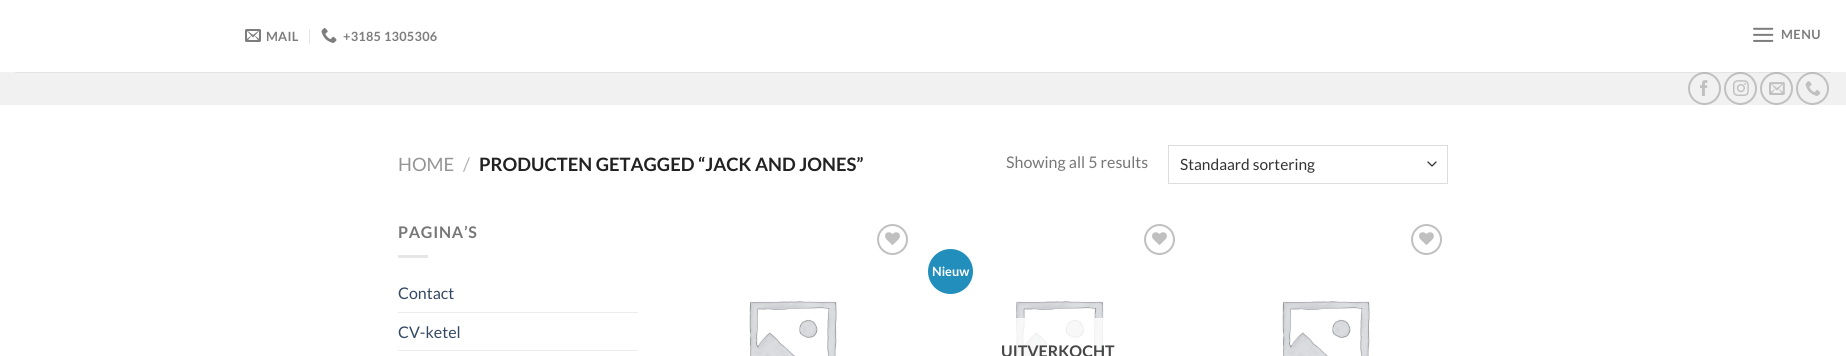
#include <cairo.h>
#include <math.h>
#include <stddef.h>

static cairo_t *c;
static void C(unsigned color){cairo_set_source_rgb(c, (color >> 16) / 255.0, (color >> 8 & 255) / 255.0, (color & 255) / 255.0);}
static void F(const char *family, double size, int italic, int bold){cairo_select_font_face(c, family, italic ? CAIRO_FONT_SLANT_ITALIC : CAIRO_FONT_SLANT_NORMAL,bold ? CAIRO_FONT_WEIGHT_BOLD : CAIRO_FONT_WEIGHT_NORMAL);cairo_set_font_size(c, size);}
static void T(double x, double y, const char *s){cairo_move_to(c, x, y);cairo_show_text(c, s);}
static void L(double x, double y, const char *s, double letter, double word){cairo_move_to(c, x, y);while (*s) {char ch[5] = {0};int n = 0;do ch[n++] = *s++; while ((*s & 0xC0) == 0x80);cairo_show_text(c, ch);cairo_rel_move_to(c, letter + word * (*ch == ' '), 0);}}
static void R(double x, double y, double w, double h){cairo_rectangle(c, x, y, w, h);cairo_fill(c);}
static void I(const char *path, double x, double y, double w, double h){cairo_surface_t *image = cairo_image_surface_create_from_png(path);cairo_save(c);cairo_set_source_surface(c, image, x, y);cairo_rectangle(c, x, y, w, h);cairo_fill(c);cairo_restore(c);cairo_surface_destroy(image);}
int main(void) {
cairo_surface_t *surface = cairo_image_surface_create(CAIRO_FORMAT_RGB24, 1846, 356);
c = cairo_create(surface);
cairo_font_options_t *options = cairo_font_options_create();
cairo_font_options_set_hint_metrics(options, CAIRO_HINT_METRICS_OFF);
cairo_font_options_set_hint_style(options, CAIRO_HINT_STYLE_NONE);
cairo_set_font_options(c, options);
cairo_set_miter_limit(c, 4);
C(0xffffff);
cairo_paint(c);
I("1.png",245,29,16,13);
F("Lato",12.75,0,1);
C(0x7d7d7d);
L(266,41,"MAIL",.25,0);
C(0xe6e6e6);
R(309,29,1,15);
I("2.png",321,28,16,15);
C(0x7d7d7d);
L(343,41,"+3185 1305306",.25,0);
I("3.png",1753,27,21,15);
L(1781,39,"MENU",.5,0);
C(0xf1f1f1);
R(0,72,1846,33);
cairo_new_path(c);
cairo_arc(c,1704.5,88.5,15.5,0,2 * M_PI);
C(0xc0c0c0);
cairo_stroke(c);
cairo_arc(c,1740.5,88.5,15.5,0,2 * M_PI);
cairo_stroke(c);
cairo_arc(c,1776.5,88.5,15.5,0,2 * M_PI);
cairo_stroke(c);
cairo_arc(c,1812.5,88.5,15.5,0,2 * M_PI);
cairo_stroke(c);
cairo_set_source_rgba(c,0.467,0.467,0.467,0.1);
R(15,72,1816,1);
I("4.png",1700,80,8,16);
I("5.png",1733,80,16,16);
I("6.png",1769,82,16,13);
I("7.png",1805,81,16,15);
F("Lato",18.4,0,0);
C(0x949494);
T(398,171,"HOME");
C(0xb2b2b2);
T(463,171,"/");
F("Lato",18.4,0,1);
C(0x222222);
T(479,171,"PRODUCTEN GETAGGED “JACK AND JONES”");
F("Lato",16,0,0);
C(0x777777);
T(1006,168,"Showing all 5 results");
cairo_new_path(c);
cairo_move_to(c,1428,162);
cairo_line_to(c,1432,166);
cairo_line_to(c,1436,162);
C(0x333333);
cairo_set_line_width(c,1.3);
cairo_set_line_cap(c,CAIRO_LINE_CAP_ROUND);
cairo_set_line_join(c,CAIRO_LINE_JOIN_ROUND);
cairo_stroke(c);
cairo_rectangle(c,1168.5,145.5,279,38);
C(0xdddddd);
cairo_set_line_width(c,1);
cairo_set_line_cap(c,CAIRO_LINE_CAP_BUTT);
cairo_set_line_join(c,CAIRO_LINE_JOIN_MITER);
cairo_stroke(c);
F("Lato",15.5,0,0);
C(0x333333);
T(1180,170,"Standaard sortering");
F("Lato",16,0,1);
C(0x777777);
L(398,238,"PAGINA’S",.75,0);
C(0xe6e6e6);
R(398,255,30,3);
F("Lato",16,0,0);
C(0x334862);
T(398,299,"Contact");
C(0xececec);
R(398,312,240,1);
C(0x334862);
T(398,338,"CV-ketel");
C(0xececec);
R(398,350,240,1);
cairo_new_path(c);
cairo_arc(c,892.5,239.5,14.5,0,2 * M_PI);
C(0xc0c0c0);
cairo_set_line_width(c,2);
cairo_stroke(c);
I("8.png",885,232,15,13);
I("9.png",749,301,88,55);
C(0x228ebc);
cairo_arc(c,950.5,271.5,22.5,0,2 * M_PI);
cairo_fill(c);
F("Lato",12.75,0,1);
C(0xffffff);
T(932,276,"Nieuw");
cairo_new_path(c);
cairo_arc(c,1159.5,239.5,14.5,0,2 * M_PI);
C(0xc0c0c0);
cairo_stroke(c);
I("8.png",1152,232,15,13);
I("10.png",1016,301,88,55);
cairo_set_source_rgba(c,1,1,1,0.81);
R(1016,318,88,38);
F("Lato",16,0,1);
C(0x474747);
T(1001,357,"UITVERKOCHT");
cairo_new_path(c);
cairo_arc(c,1426.5,239.5,14.5,0,2 * M_PI);
C(0xc0c0c0);
cairo_stroke(c);
I("8.png",1419,232,15,13);
I("9.png",1282,301,88,55);
cairo_surface_write_to_png(surface, "o.png");
cairo_font_options_destroy(options);
cairo_destroy(c);
cairo_surface_destroy(surface);
return 0;
}
